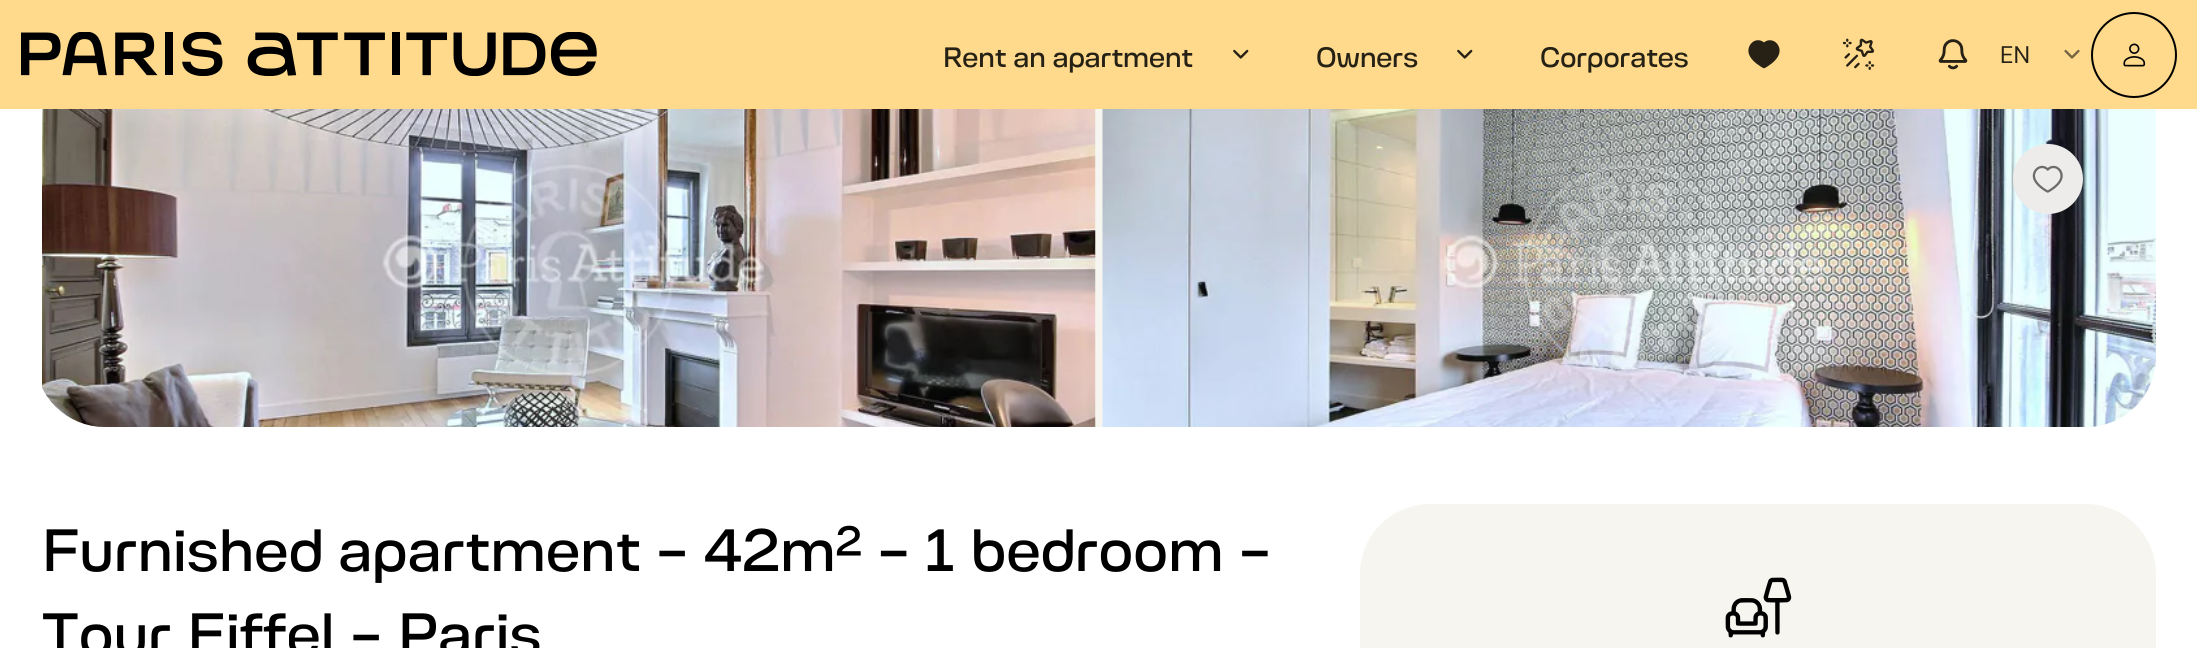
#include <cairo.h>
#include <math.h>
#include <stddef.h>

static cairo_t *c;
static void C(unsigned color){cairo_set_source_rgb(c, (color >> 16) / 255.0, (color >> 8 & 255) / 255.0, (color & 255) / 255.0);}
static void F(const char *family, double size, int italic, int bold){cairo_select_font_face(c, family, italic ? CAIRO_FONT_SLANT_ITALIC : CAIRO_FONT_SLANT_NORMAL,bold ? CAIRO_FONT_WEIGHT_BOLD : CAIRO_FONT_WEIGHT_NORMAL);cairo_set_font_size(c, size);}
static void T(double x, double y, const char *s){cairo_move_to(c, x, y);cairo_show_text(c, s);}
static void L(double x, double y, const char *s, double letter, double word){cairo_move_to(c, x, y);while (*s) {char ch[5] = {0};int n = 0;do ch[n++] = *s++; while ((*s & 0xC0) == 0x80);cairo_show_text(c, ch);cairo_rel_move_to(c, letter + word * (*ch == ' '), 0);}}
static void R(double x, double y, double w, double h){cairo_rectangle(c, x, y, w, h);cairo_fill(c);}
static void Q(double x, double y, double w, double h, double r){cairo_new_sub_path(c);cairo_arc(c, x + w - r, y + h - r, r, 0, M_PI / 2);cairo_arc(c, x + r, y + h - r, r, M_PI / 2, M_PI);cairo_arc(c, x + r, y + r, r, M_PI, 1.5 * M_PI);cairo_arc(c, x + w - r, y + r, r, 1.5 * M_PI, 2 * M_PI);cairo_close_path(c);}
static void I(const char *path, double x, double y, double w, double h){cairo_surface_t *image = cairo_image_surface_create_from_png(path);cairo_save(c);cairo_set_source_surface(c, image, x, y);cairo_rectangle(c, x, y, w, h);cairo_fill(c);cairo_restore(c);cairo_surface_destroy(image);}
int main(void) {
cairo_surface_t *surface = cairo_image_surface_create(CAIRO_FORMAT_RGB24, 2197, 648);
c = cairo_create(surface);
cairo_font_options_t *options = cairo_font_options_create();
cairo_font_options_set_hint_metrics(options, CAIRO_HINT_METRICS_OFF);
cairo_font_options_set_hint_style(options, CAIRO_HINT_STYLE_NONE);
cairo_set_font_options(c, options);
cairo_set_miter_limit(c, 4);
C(0xffffff);
cairo_paint(c);
cairo_save(c);
cairo_rectangle(c,42,109,2114,325);
cairo_clip(c);
C(0xf6f5ef);
cairo_new_path(c);
cairo_move_to(c,35,102);
cairo_line_to(c,1096,102);
cairo_line_to(c,1096,427);
cairo_line_to(c,105,427);
cairo_curve_to(c,66.5,427,35,395.5,35,357);
cairo_close_path(c);
cairo_fill(c);
cairo_restore(c);
C(0xffda8c);
R(0,0,2197,109);
I("1.png",21,32,576,44);
F("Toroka",28,0,0);
C(0x262115);
T(943,67,"Rent an apartment");
I("2.png",1233,49,16,10);
T(1316,67,"Owners");
I("2.png",1457,49,16,10);
T(1540,67,"Corporates");
I("3.png",1748,40,32,29);
I("4.png",1842,38,33,32);
I("5.png",1938,39,30,31);
F("DM Sans",24,0,0);
T(2000,63,"EN");
I("6.png",2064,49,16,10);
cairo_arc(c,2134,55,42,0,2 * M_PI);
C(0x000000);
cairo_stroke(c);
I("7.png",2123,43,23,24);
I("8.png",42,109,1054,318);
C(0xf6f5ef);
cairo_new_path(c);
cairo_move_to(c,1096,109);
cairo_line_to(c,2156,109);
cairo_line_to(c,2156,357);
cairo_curve_to(c,2156,395.5,2124.5,427,2086,427);
cairo_line_to(c,1096,427);
cairo_close_path(c);
cairo_fill(c);
I("9.png",1102,109,1054,318);
C(0xedecea);
cairo_arc(c,2048,179,35,0,2 * M_PI);
cairo_fill(c);
I("10.png",2032,165,31,28);
F("Toroka",59.5,0,0);
C(0x000000);
L(42,571,"Furnished apartment - 42m² - 1 bedroom -",.45,0);
L(42,655,"Tour Eiffel - Paris",.45,0);
C(0xf6f5ef);
Q(1360,504,796,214,70);
cairo_fill(c);
I("11.png",1725,577,67,61);
cairo_surface_write_to_png(surface, "o.png");
cairo_font_options_destroy(options);
cairo_destroy(c);
cairo_surface_destroy(surface);
return 0;
}
